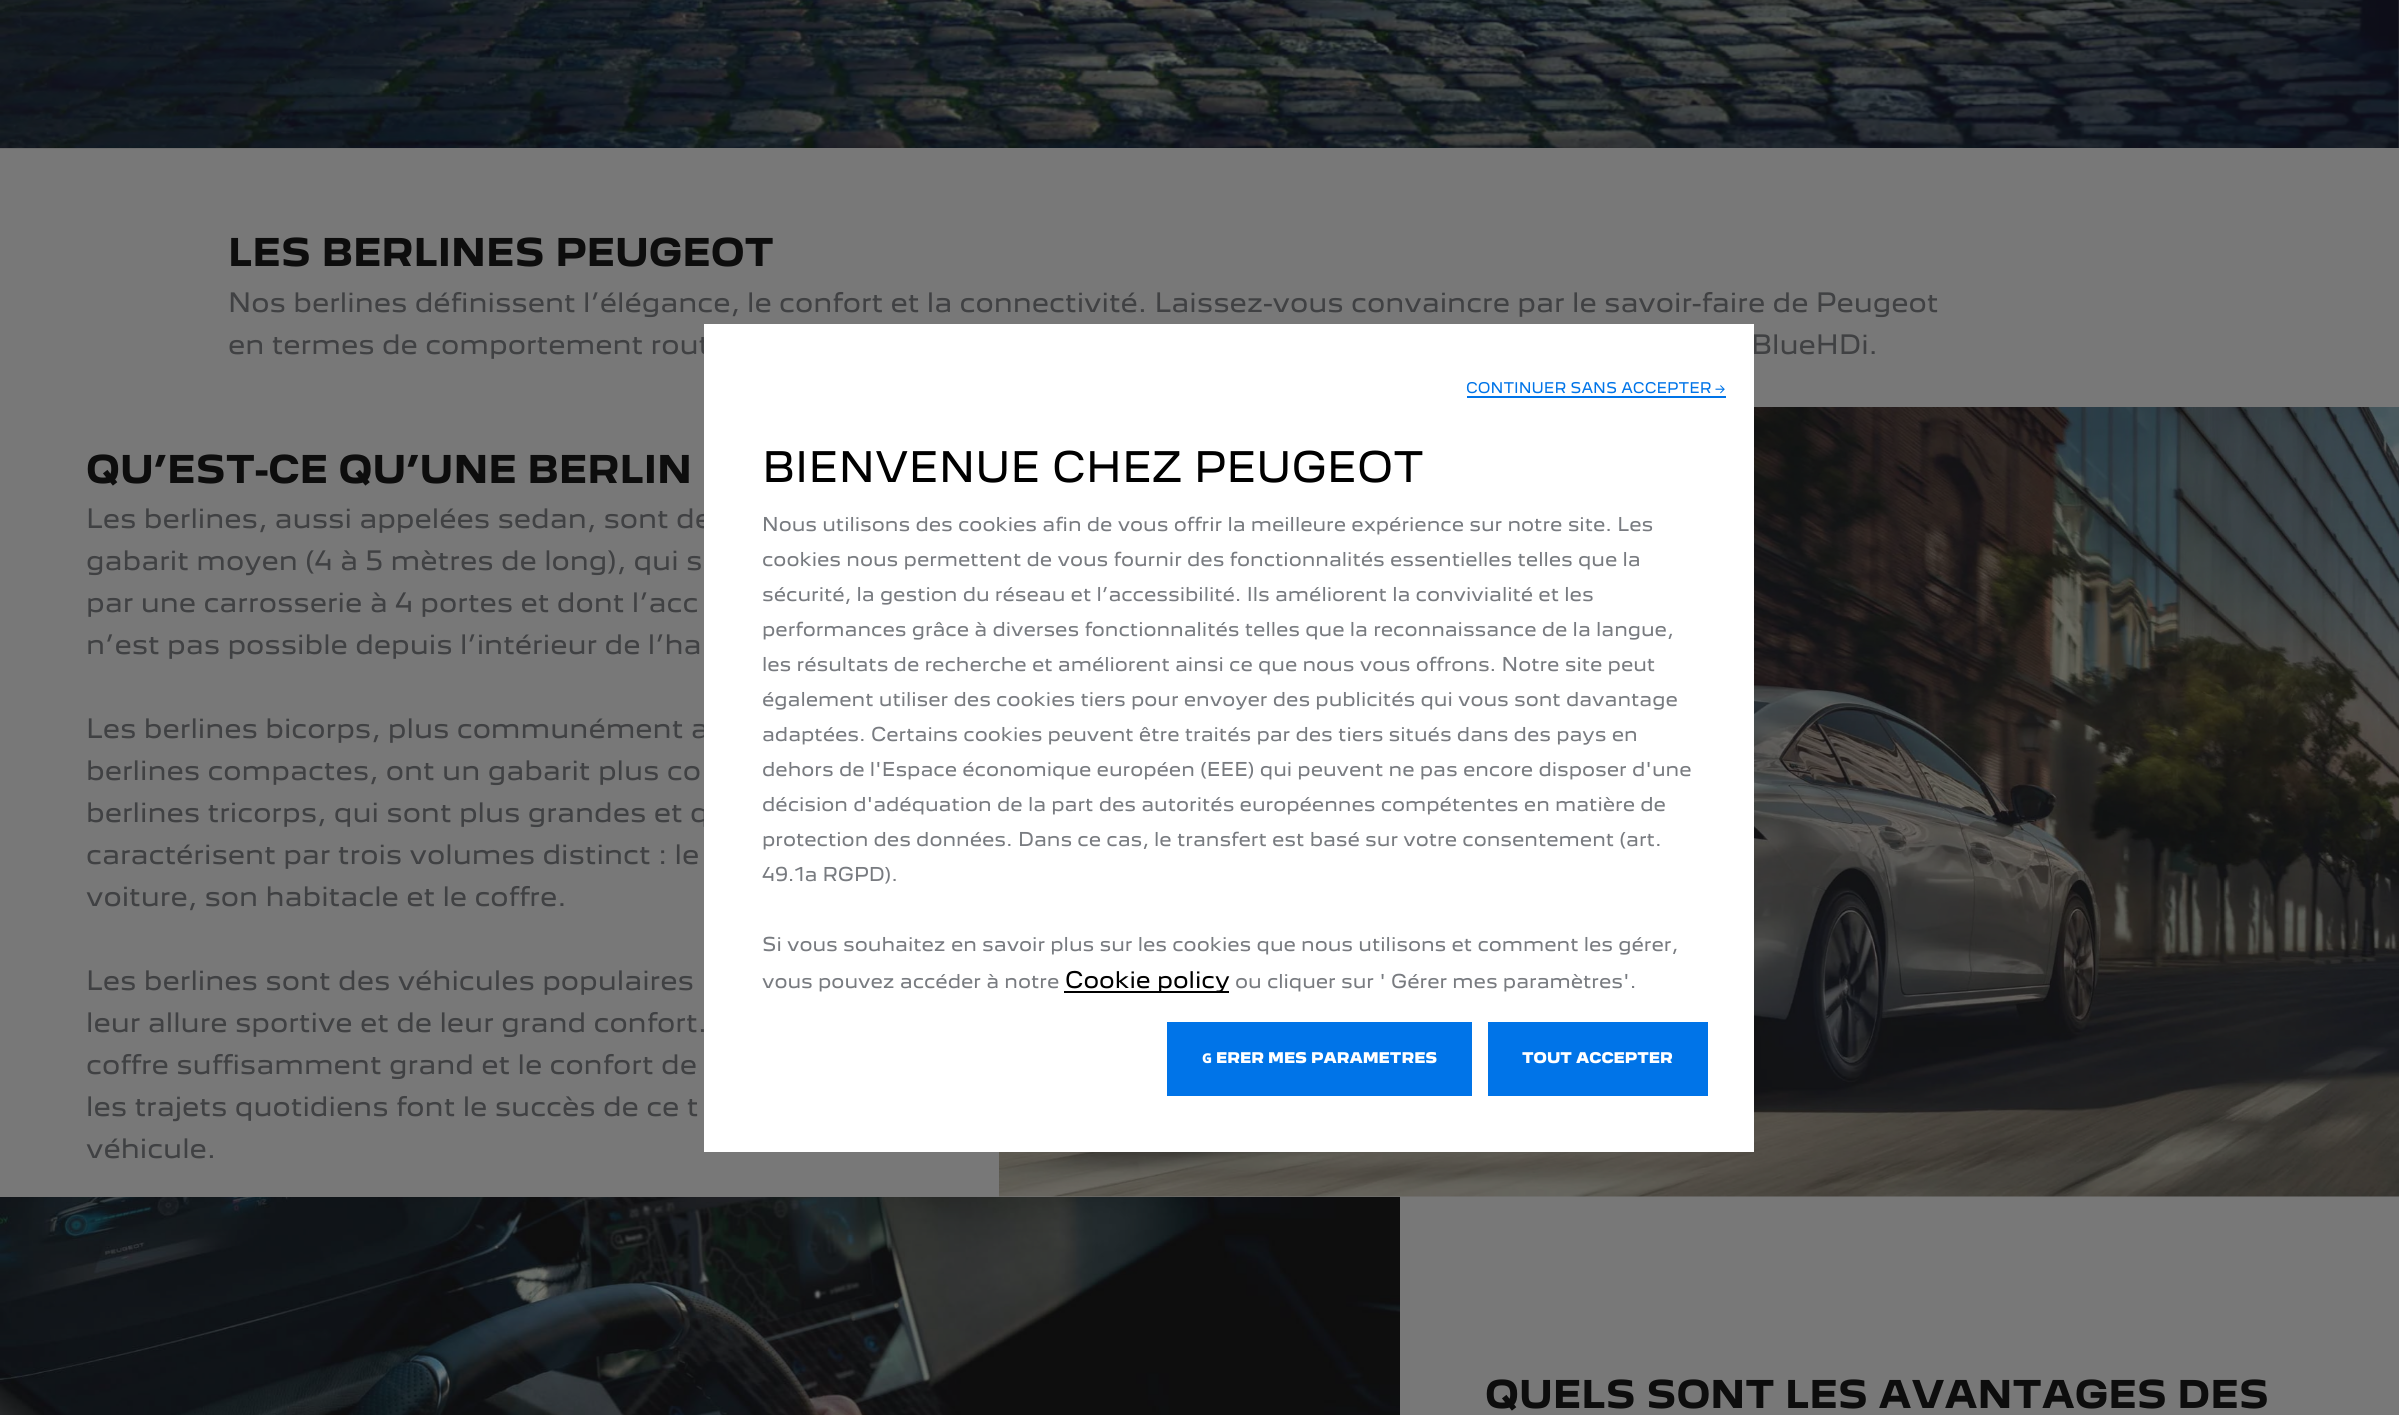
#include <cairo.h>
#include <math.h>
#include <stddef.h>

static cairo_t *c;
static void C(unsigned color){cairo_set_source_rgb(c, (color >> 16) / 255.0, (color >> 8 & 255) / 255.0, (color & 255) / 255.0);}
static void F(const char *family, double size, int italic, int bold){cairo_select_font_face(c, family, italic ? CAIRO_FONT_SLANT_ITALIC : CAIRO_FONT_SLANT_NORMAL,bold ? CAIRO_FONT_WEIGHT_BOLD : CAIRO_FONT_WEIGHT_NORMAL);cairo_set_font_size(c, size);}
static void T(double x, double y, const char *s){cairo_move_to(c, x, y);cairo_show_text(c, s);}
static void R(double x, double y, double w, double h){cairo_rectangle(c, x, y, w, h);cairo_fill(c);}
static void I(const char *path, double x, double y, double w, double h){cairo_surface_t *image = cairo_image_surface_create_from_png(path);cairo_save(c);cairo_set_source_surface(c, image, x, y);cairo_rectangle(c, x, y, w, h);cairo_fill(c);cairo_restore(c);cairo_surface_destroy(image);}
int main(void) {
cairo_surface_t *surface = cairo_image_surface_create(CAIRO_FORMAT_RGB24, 2399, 1415);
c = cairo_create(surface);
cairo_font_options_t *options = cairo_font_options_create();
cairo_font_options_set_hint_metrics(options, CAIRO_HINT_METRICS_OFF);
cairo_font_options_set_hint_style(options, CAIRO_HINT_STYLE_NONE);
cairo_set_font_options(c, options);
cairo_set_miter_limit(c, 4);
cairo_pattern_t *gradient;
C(0x787878);
cairo_paint(c);
I("1.png",0,0,2399,148);
gradient = cairo_pattern_create_linear(262,-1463,2137,411);
cairo_pattern_add_color_stop_rgba(gradient,0,0.137,0.137,0.137,.5);
cairo_pattern_add_color_stop_rgba(gradient,.5,0.137,0.137,0.137,0);
cairo_set_source(c,gradient);
cairo_pattern_destroy(gradient);
R(0,0,415,149);
F("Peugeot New",35,0,1);
C(0x0d0d0d);
T(228,266,"LES BERLINES PEUGEOT");
F("Peugeot New",24.5,0,0);
C(0x404143);
T(228,312,"Nos berlines définissent l’élégance, le confort et la connectivité. Laissez-vous convaincre par le savoir-faire de Peugeot");
T(228,354,"en termes de comportement rout");
T(1751,354,"BlueHDi.");
F("Peugeot New",35,0,1);
C(0x0d0d0d);
T(86,483,"QU’EST-CE QU’UNE BERLIN");
F("Peugeot New",24.5,0,0);
C(0x404143);
T(86,528,"Les berlines, aussi appelées sedan, sont de");
T(86,570,"gabarit moyen (4 à 5 mètres de long), qui s");
T(86,612,"par une carrosserie à 4 portes et dont l’acc");
T(86,654,"n’est pas possible depuis l’intérieur de l’ha");
T(86,738,"Les berlines bicorps, plus communément a");
T(86,780,"berlines compactes, ont un gabarit plus co");
T(86,822,"berlines tricorps, qui sont plus grandes et q");
T(86,864,"caractérisent par trois volumes distinct : le");
T(86,906,"voiture, son habitacle et le coffre.");
T(86,990,"Les berlines sont des véhicules populaires");
T(86,1032,"leur allure sportive et de leur grand confort.");
T(86,1074,"coffre suffisamment grand et le confort de");
T(86,1116,"les trajets quotidiens font le succès de ce t");
T(86,1158,"véhicule.");
I("2.png",999,407,1400,790);
I("3.png",0,1197,1400,218);
F("Peugeot New",35,0,1);
C(0x0d0d0d);
T(1485,1408,"QUELS SONT LES AVANTAGES DES");
C(0xffffff);
R(704,324,1050,828);
F("Peugeot New",13.5,0,0);
C(0x0074e8);
T(1466,393,"CONTINUER SANS ACCEPTER →");
R(1467,396,259,2);
F("Peugeot New",38.5,0,0);
C(0x000000);
T(762,482,"BIENVENUE CHEZ PEUGEOT");
F("Peugeot New",17.5,0,0);
C(0x787b80);
T(762,531,"Nous utilisons des cookies afin de vous offrir la meilleure expérience sur notre site. Les");
T(762,566,"cookies nous permettent de vous fournir des fonctionnalités essentielles telles que la");
T(762,601,"sécurité, la gestion du réseau et l’accessibilité. Ils améliorent la convivialité et les");
T(762,636,"performances grâce à diverses fonctionnalités telles que la reconnaissance de la langue,");
T(762,671,"les résultats de recherche et améliorent ainsi ce que nous vous offrons. Notre site peut");
T(762,706,"également utiliser des cookies tiers pour envoyer des publicités qui vous sont davantage");
T(762,741,"adaptées. Certains cookies peuvent être traités par des tiers situés dans des pays en");
T(762,776,"dehors de l'Espace économique européen (EEE) qui peuvent ne pas encore disposer d'une");
T(762,811,"décision d'adéquation de la part des autorités européennes compétentes en matière de");
T(762,846,"protection des données. Dans ce cas, le transfert est basé sur votre consentement (art.");
T(762,881,"49.1a RGPD).");
T(762,951,"Si vous souhaitez en savoir plus sur les cookies que nous utilisons et comment les gérer,");
T(762,988,"vous pouvez accéder à notre");
C(0x000000);
R(1064,991,165,2);
F("Peugeot New",21,0,0);
T(1065,988,"Cookie policy");
F("Peugeot New",17.5,0,0);
C(0x787b80);
T(1235,988,"ou cliquer sur ' Gérer mes paramètres'.");
C(0x0074e8);
R(1167,1022,305,74);
F("Noto Sans Black",13.5,0,0);
C(0xffffff);
T(1202,1063,"G");
F("Peugeot New Black",13.5,0,0);
T(1216,1063,"ERER MES PARAMETRES");
C(0x0074e8);
R(1488,1022,220,74);
C(0xffffff);
T(1522,1063,"TOUT ACCEPTER");
cairo_surface_write_to_png(surface, "o.png");
cairo_font_options_destroy(options);
cairo_destroy(c);
cairo_surface_destroy(surface);
return 0;
}
